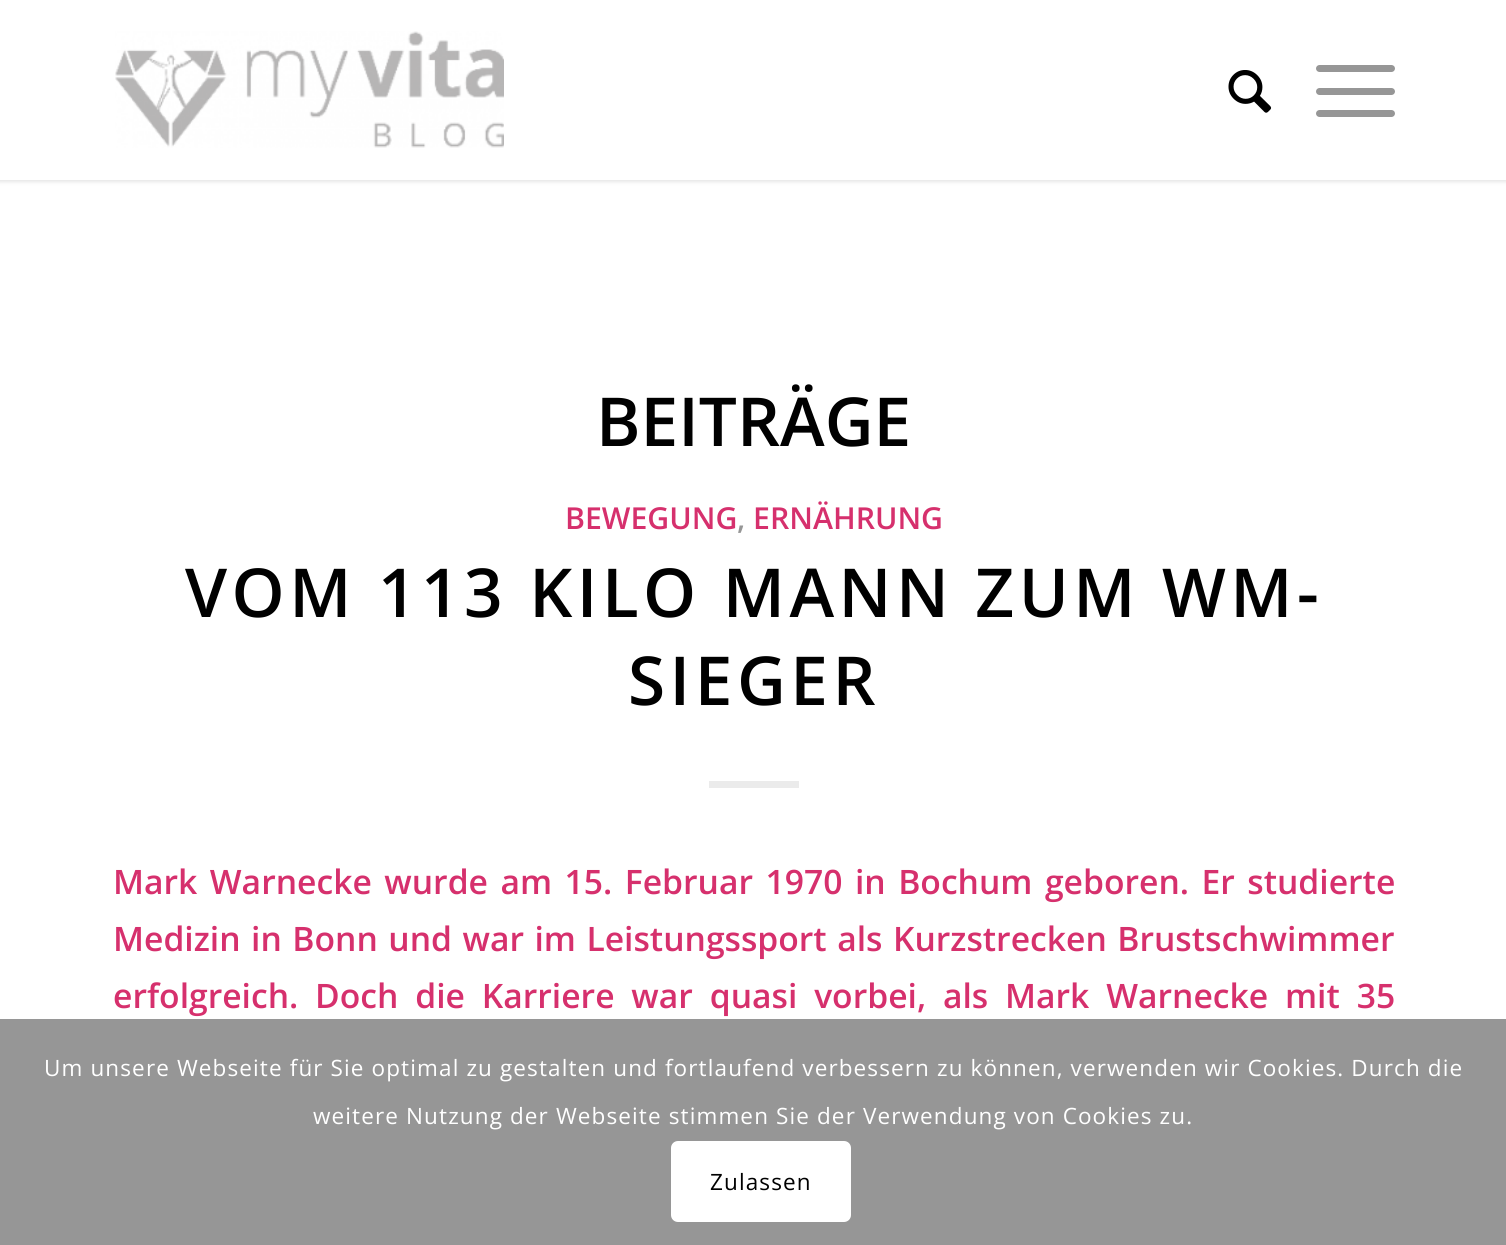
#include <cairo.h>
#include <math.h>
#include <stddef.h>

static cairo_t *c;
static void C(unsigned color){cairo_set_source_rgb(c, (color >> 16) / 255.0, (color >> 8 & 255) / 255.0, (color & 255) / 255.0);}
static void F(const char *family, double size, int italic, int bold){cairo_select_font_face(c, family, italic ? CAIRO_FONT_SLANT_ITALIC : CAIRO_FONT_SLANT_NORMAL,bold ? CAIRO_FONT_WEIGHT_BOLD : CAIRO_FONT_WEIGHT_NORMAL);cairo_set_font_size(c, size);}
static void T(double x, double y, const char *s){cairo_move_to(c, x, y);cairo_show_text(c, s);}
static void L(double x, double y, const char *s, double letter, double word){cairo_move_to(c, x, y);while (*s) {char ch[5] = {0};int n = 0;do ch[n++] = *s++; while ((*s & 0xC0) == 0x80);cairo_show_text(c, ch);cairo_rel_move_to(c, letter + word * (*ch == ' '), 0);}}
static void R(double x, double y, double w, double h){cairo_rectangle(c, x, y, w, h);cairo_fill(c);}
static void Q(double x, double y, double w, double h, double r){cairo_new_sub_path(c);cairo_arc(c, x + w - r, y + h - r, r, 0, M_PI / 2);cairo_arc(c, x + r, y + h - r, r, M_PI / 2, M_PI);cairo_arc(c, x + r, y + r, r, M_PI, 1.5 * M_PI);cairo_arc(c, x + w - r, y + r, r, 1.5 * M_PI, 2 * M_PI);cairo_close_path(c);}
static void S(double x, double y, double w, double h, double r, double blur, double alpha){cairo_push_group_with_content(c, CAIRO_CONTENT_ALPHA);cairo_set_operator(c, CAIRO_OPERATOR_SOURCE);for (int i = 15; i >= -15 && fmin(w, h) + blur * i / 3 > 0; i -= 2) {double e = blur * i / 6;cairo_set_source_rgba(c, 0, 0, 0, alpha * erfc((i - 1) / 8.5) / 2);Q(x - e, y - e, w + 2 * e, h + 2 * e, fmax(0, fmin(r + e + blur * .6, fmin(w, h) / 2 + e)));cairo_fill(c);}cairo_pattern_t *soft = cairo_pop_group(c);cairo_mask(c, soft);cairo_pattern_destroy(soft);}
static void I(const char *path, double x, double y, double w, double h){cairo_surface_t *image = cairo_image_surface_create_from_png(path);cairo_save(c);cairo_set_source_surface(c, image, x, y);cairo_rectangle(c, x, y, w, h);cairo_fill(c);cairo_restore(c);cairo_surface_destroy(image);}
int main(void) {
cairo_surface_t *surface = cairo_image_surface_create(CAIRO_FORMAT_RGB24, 1506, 1245);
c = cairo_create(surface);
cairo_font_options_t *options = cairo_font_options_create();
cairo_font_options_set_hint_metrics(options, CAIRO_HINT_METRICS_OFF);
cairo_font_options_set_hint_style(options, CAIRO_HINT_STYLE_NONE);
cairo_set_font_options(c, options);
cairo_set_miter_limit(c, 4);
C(0xffffff);
cairo_paint(c);
C(0x000000);
S(-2,-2,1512,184,0,2,.1);
C(0xffffff);
R(0,0,1506,180);
I("1.png",115,31,389,117);
I("2.png",1228,70,44,43);
C(0x969696);
Q(1316,88,79,7,3.5);
cairo_fill(c);
Q(1316,65,79,7,3.5);
cairo_fill(c);
Q(1316,110,79,7,3.5);
cairo_fill(c);
F("Open Sans SemiBold",67.5,0,0);
C(0x000000);
T(596,446,"BEITRÄGE");
F("Open Sans SemiBold",30.25,0,0);
C(0xd6306d);
T(565,529,"BEWEGUNG");
C(0x969696);
T(737,529,",");
C(0xd6306d);
T(753,529,"ERNÄHRUNG");
F("Open Sans SemiBold",67.5,0,0);
C(0x000000);
L(185,617,"VOM 113 KILO MANN ZUM WM-",4.5,0);
L(628,705,"SIEGER",4.5,0);
C(0xebebeb);
R(709,781,90,7);
F("Open Sans SemiBold",33.65,0,0);
C(0xd6306d);
L(113,894,"Mark Warnecke wurde am 15. Februar 1970 in Bochum geboren. Er studierte",0,3.75);
L(113,951,"Medizin in Bonn und war im Leistungssport als Kurzstrecken Brustschwimmer",0,1.75);
L(113,1008,"erfolgreich. Doch die Karriere war quasi vorbei, als Mark Warnecke mit 35",0,8.1);
C(0x969696);
R(0,1019,1506,226);
F("Open Sans",22.5,0,0);
C(0xffffff);
L(44,1076,"Um unsere Webseite für Sie optimal zu gestalten und fortlaufend verbessern zu können, verwenden wir Cookies. Durch die",1.12,0);
L(313,1124,"weitere Nutzung der Webseite stimmen Sie der Verwendung von Cookies zu.",1.12,0);
Q(671,1141,180,81,7);
cairo_fill(c);
C(0x000000);
L(710,1190,"Zulassen",1.12,0);
cairo_surface_write_to_png(surface, "o.png");
cairo_font_options_destroy(options);
cairo_destroy(c);
cairo_surface_destroy(surface);
return 0;
}
